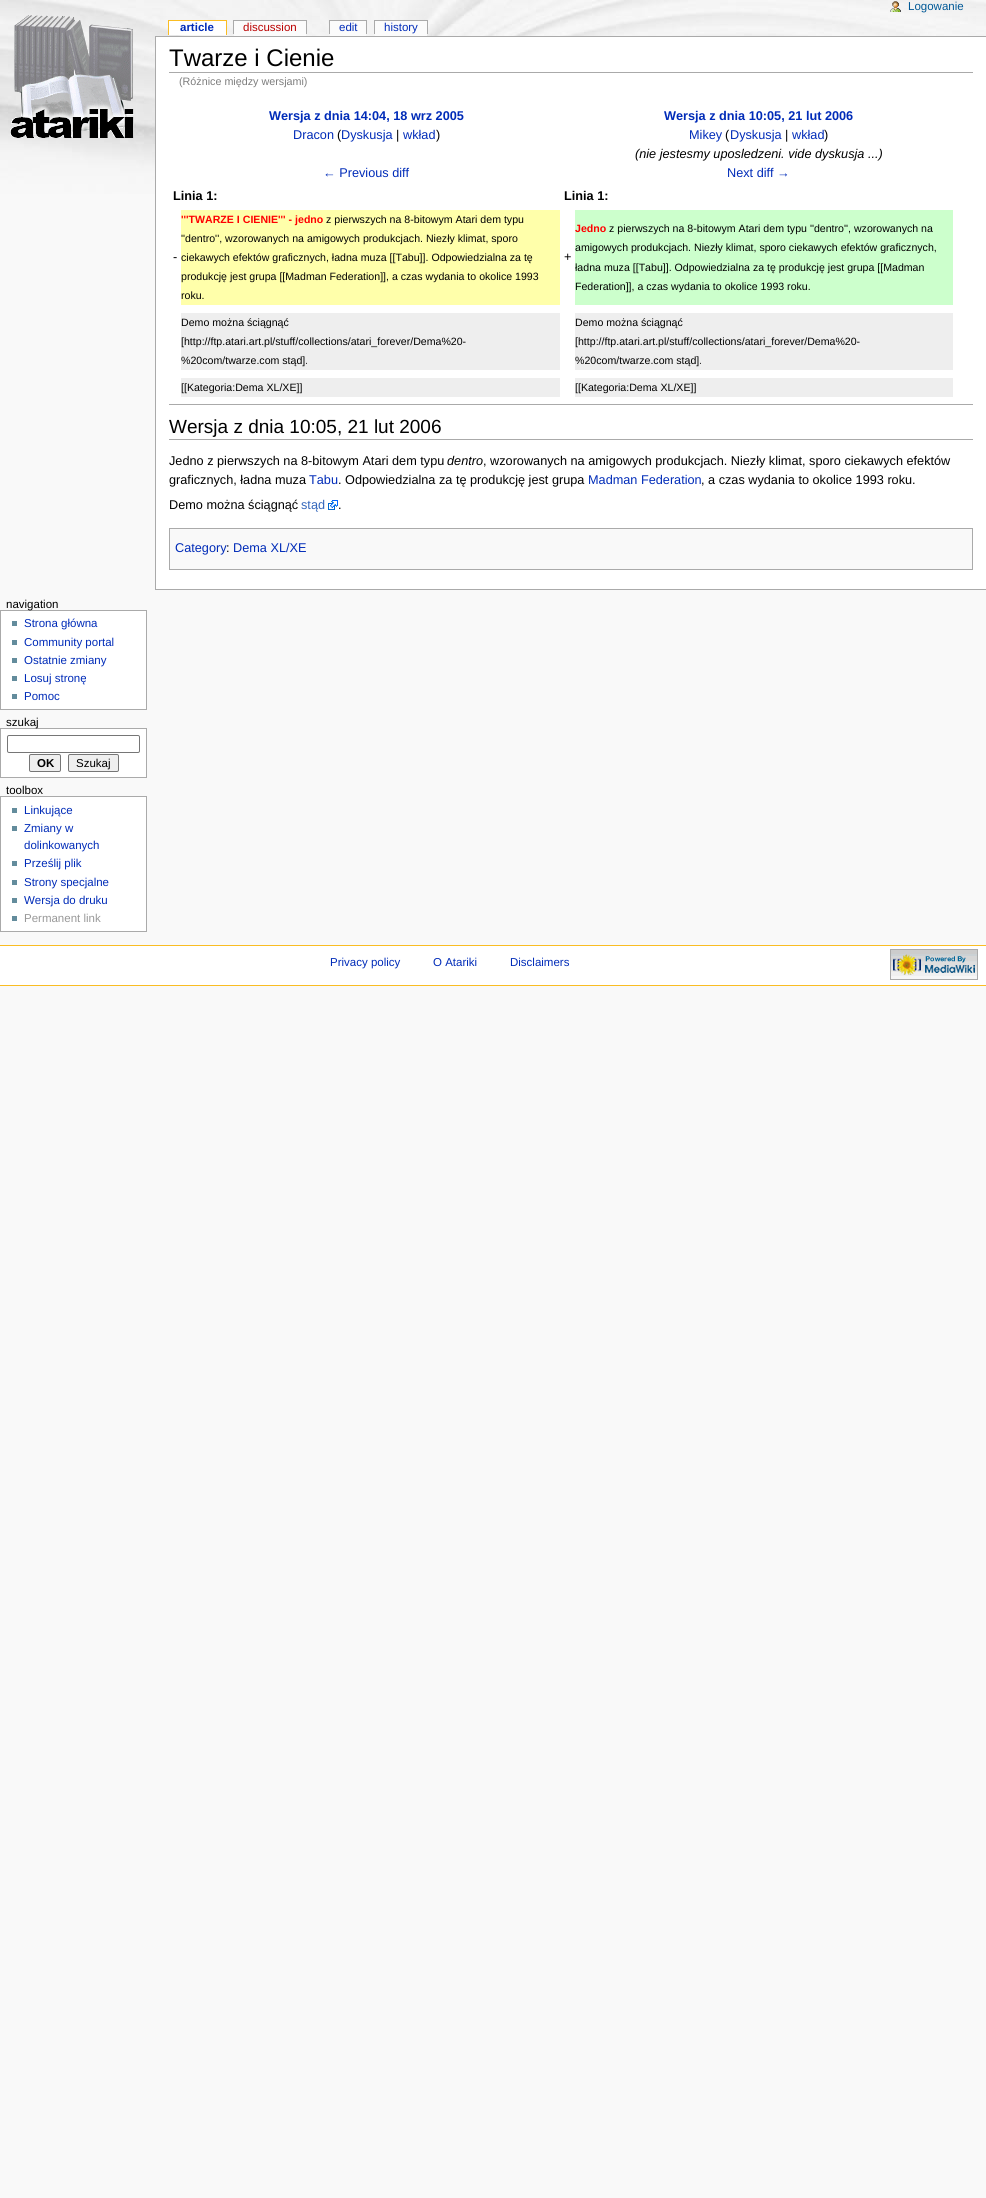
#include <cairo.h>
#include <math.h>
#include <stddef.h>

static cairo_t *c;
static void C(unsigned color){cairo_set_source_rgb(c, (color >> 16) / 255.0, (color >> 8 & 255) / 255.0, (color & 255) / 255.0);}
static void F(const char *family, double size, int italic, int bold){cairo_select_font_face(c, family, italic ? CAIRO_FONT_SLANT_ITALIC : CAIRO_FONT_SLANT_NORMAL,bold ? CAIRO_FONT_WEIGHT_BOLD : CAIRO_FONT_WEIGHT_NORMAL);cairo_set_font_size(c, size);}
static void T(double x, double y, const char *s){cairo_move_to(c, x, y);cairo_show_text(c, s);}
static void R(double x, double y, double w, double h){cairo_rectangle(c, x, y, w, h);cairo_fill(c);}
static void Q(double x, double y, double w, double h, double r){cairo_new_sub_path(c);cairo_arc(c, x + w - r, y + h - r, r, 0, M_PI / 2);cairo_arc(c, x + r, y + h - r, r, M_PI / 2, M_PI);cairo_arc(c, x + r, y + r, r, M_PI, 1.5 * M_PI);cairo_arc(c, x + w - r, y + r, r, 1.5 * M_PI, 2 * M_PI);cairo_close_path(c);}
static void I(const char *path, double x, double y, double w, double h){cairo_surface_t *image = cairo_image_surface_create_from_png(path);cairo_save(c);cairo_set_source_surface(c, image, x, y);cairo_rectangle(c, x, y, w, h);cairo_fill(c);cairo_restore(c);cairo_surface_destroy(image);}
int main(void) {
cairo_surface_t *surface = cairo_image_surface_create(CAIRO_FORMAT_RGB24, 986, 2198);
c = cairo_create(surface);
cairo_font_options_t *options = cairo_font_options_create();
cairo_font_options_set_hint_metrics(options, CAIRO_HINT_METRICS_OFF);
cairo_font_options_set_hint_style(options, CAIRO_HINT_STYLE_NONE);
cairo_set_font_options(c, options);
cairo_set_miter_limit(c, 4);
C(0xf9f9f9);
cairo_paint(c);
I("1.png",0,0,986,194);
I("2.png",890,1,11,11);
F("Liberation Sans",11.5,0,0);
C(0x005896);
T(908,10,"Logowanie");
I("3.png",10,15,124,123);
C(0xffffff);
R(169,21,57,14);
F("Liberation Sans",11.5,0,1);
C(0x002bb8);
T(180,31,"article");
C(0xfabd23);
R(168,20,59,1);
R(226,20,1,15);
R(168,20,1,15);
C(0xfbfbfb);
R(234,21,72,15);
F("Liberation Sans",11.5,0,0);
C(0xba0000);
T(243,31,"discussion");
C(0xaaaaaa);
R(233,20,74,1);
R(306,20,1,14);
R(233,20,1,14);
C(0xfbfbfb);
R(330,21,36,15);
C(0x002bb8);
T(339,31,"edit");
C(0xaaaaaa);
R(329,20,38,1);
R(366,20,1,14);
R(329,20,1,14);
C(0xfbfbfb);
R(375,21,52,15);
C(0x002bb8);
T(384,31,"history");
C(0xaaaaaa);
R(374,20,54,1);
R(427,20,1,14);
R(374,20,1,14);
C(0xffffff);
cairo_rectangle(c,.5,610.5,146,99);
cairo_fill_preserve(c);
C(0xaaaaaa);
cairo_set_line_width(c,1);
cairo_stroke(c);
C(0x000000);
T(6,608,"navigation");
C(0x638c9c);
R(12,621,5,5);
C(0x002bb8);
T(24,627,"Strona główna");
C(0x638c9c);
R(12,640,5,5);
C(0x002bb8);
T(24,646,"Community portal");
C(0x638c9c);
R(12,658,5,5);
C(0x002bb8);
T(24,664,"Ostatnie zmiany");
C(0x638c9c);
R(12,676,5,5);
C(0x002bb8);
T(24,682,"Losuj stronę");
C(0x638c9c);
R(12,694,5,5);
C(0x002bb8);
T(24,700,"Pomoc");
C(0xffffff);
cairo_rectangle(c,.5,728.5,146,49);
cairo_fill_preserve(c);
C(0xaaaaaa);
cairo_stroke(c);
C(0x000000);
T(6,726,"szukaj");
Q(7.5,735.5,132,17,1.5);
C(0x767676);
cairo_stroke(c);
C(0xefefef);
Q(29.5,754.5,31,17,1.5);
cairo_fill_preserve(c);
C(0x767676);
cairo_stroke(c);
F("Liberation Sans",11.5,0,1);
C(0x000000);
T(37,767,"OK");
C(0xefefef);
Q(68.5,754.5,50,17,1.5);
cairo_fill_preserve(c);
C(0x767676);
cairo_stroke(c);
F("Liberation Sans",11.5,0,0);
C(0x000000);
T(76,767,"Szukaj");
T(6,794,"toolbox");
C(0xffffff);
cairo_rectangle(c,.5,796.5,146,135);
cairo_fill_preserve(c);
C(0xaaaaaa);
cairo_stroke(c);
C(0x638c9c);
R(12,808,5,5);
C(0x002bb8);
T(24,814,"Linkujące");
C(0x638c9c);
R(12,826,5,5);
C(0x002bb8);
T(24,832,"Zmiany w");
T(24,849,"dolinkowanych");
C(0x638c9c);
R(12,861,5,5);
C(0x002bb8);
T(24,867,"Prześlij plik");
C(0x638c9c);
R(12,880,5,5);
C(0x002bb8);
T(24,886,"Strony specjalne");
C(0x638c9c);
R(12,898,5,5);
C(0x002bb8);
T(24,904,"Wersja do druku");
C(0x638c9c);
R(12,916,5,5);
C(0x999999);
T(24,922,"Permanent link");
C(0xffffff);
R(156,37,830,552);
C(0xaaaaaa);
R(155,36,831,1);
R(155,589,831,1);
R(155,36,1,554);
R(169,72,804,1);
F("Liberation Sans",24,0,0);
C(0x000000);
T(169,66,"Twarze i Cienie");
F("Liberation Sans",10.75,0,0);
C(0x7d7d7d);
T(179,85,"(Różnice między wersjami)");
F("Liberation Sans",12.7,0,1);
C(0x002bb8);
T(269,120,"Wersja z dnia 14:04, 18 wrz 2005");
F("Liberation Sans",12.7,0,0);
T(293,139,"Dracon");
C(0x000000);
T(337,139,"(");
C(0x002bb8);
T(341,139,"Dyskusja");
C(0x000000);
T(396,139,"|");
C(0x002bb8);
T(403,139,"wkład");
C(0x000000);
T(436,139,")");
C(0x002bb8);
T(323,177,"← Previous diff");
F("Liberation Sans",12.7,0,1);
T(664,120,"Wersja z dnia 10:05, 21 lut 2006");
F("Liberation Sans",12.7,0,0);
T(689,139,"Mikey");
C(0x000000);
T(725,139,"(");
C(0x002bb8);
T(730,139,"Dyskusja");
C(0x000000);
T(785,139,"|");
C(0x002bb8);
T(792,139,"wkład");
C(0x000000);
T(824,139,")");
F("Liberation Sans",12.7,1,0);
T(635,158,"(nie jestesmy uposledzeni. vide dyskusja ...)");
F("Liberation Sans",12.7,0,0);
C(0x002bb8);
T(727,177,"Next diff →");
F("Liberation Sans",12.7,0,1);
C(0x000000);
T(173,200,"Linia 1:");
T(564,200,"Linia 1:");
F("Liberation Sans",12.7,0,0);
T(173,261,"-");
C(0xffffaa);
R(181,210,379,95);
F("Liberation Sans",10.6,0,1);
C(0xff0000);
T(181,223,"'''TWARZE I CIENIE''' - jedno");
F("Liberation Sans",10.6,0,0);
C(0x000000);
T(326,223,"z pierwszych na 8-bitowym Atari dem typu");
T(181,242,"''dentro'', wzorowanych na amigowych produkcjach. Niezły klimat, sporo");
T(181,261,"ciekawych efektów graficznych, ładna muza [[Tabu]]. Odpowiedzialna za tę");
T(181,280,"produkcję jest grupa [[Madman Federation]], a czas wydania to okolice 1993");
T(181,299,"roku.");
F("Liberation Sans",12.7,0,0);
T(564,261,"+");
C(0xccffcc);
R(575,210,378,95);
F("Liberation Sans",10.6,0,1);
C(0xff0000);
T(575,232,"Jedno");
F("Liberation Sans",10.6,0,0);
C(0x000000);
T(609,232,"z pierwszych na 8-bitowym Atari dem typu ''dentro'', wzorowanych na");
T(575,251,"amigowych produkcjach. Niezły klimat, sporo ciekawych efektów graficznych,");
T(575,271,"ładna muza [[Tabu]]. Odpowiedzialna za tę produkcję jest grupa [[Madman");
T(575,290,"Federation]], a czas wydania to okolice 1993 roku.");
C(0xeeeeee);
R(181,313,379,57);
C(0x000000);
T(181,326,"Demo można ściągnąć");
T(181,345,"[http://ftp.atari.art.pl/stuff/collections/atari_forever/Dema%20-");
T(181,364,"%20com/twarze.com stąd].");
C(0xeeeeee);
R(575,313,378,57);
C(0x000000);
T(575,326,"Demo można ściągnąć");
T(575,345,"[http://ftp.atari.art.pl/stuff/collections/atari_forever/Dema%20-");
T(575,364,"%20com/twarze.com stąd].");
C(0xeeeeee);
R(181,378,379,19);
C(0x000000);
T(181,391,"[[Kategoria:Dema XL/XE]]");
C(0xeeeeee);
R(575,378,378,19);
C(0x000000);
T(575,391,"[[Kategoria:Dema XL/XE]]");
C(0xaaaaaa);
R(169,404,804,1);
R(169,439,804,1);
F("Liberation Sans",19,0,0);
C(0x000000);
T(169,433,"Wersja z dnia 10:05, 21 lut 2006");
F("Liberation Sans",12.7,0,0);
T(169,465,"Jedno z pierwszych na 8-bitowym Atari dem typu");
F("Liberation Sans",12.7,1,0);
T(447,465,"dentro");
F("Liberation Sans",12.7,0,0);
T(483,465,", wzorowanych na amigowych produkcjach. Niezły klimat, sporo ciekawych efektów");
T(169,484,"graficznych, ładna muza");
C(0x002bb8);
T(309,484,"Tabu");
C(0x000000);
T(338,484,". Odpowiedzialna za tę produkcję jest grupa");
C(0x002bb8);
T(588,484,"Madman Federation");
C(0x000000);
T(701,484,", a czas wydania to okolice 1993 roku.");
T(169,509,"Demo można ściągnąć");
C(0x3366bb);
T(301,509,"stąd");
I("4.png",328,500,10,10);
C(0x000000);
T(338,509,".");
C(0xf9f9f9);
cairo_rectangle(c,169.5,528.5,803,41);
cairo_fill_preserve(c);
C(0xaaaaaa);
cairo_stroke(c);
C(0x002bb8);
T(175,552,"Category");
C(0x000000);
T(226,552,":");
C(0x002bb8);
T(233,552,"Dema XL/XE");
C(0xffffff);
R(0,946,986,39);
C(0xfabd23);
R(0,945,986,1);
R(0,985,986,1);
F("Liberation Sans",11.5,0,0);
C(0x002bb8);
T(330,966,"Privacy policy");
T(433,966,"O Atariki");
T(510,966,"Disclaimers");
I("5.png",890,949,88,31);
cairo_surface_write_to_png(surface, "o.png");
cairo_font_options_destroy(options);
cairo_destroy(c);
cairo_surface_destroy(surface);
return 0;
}
